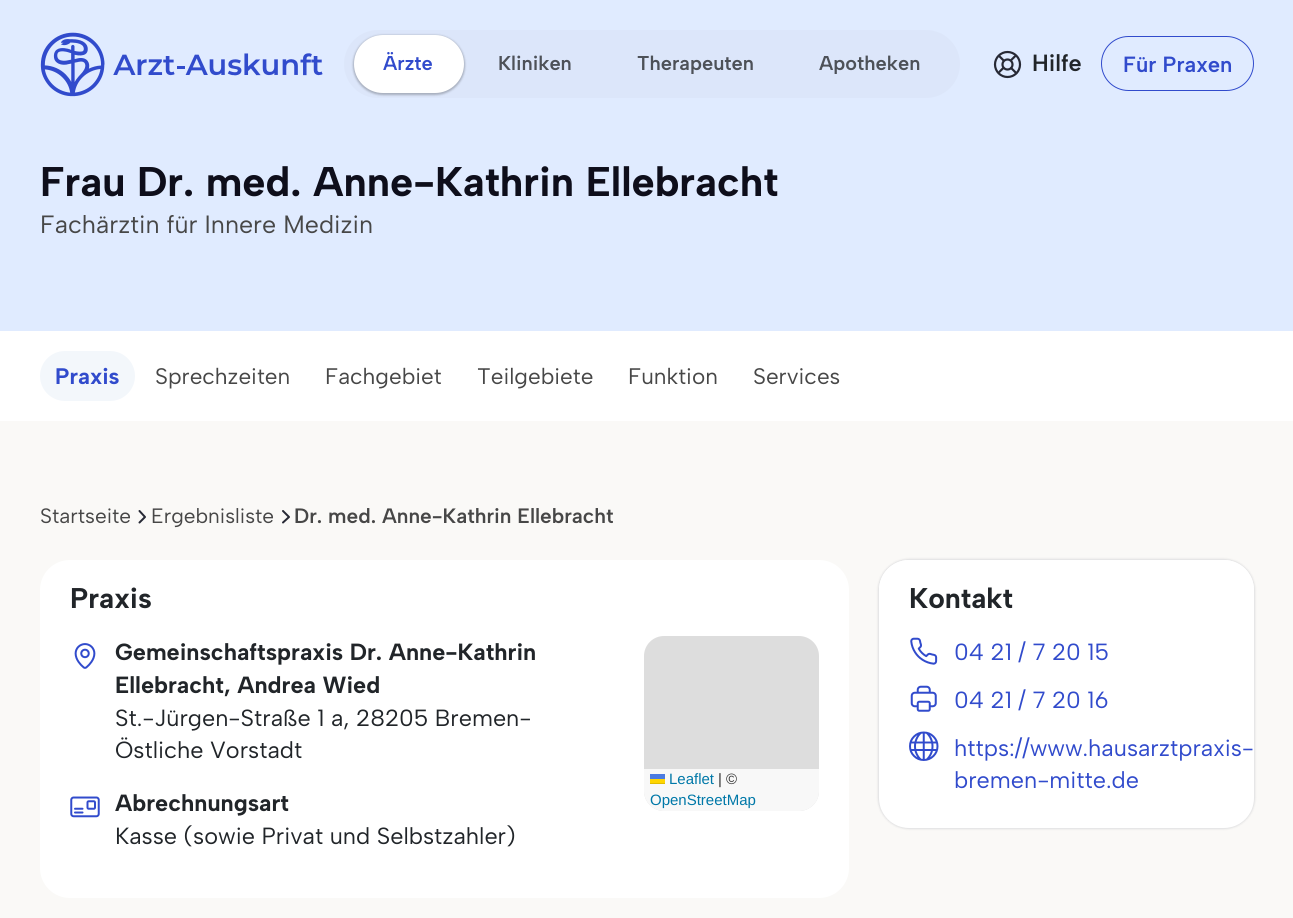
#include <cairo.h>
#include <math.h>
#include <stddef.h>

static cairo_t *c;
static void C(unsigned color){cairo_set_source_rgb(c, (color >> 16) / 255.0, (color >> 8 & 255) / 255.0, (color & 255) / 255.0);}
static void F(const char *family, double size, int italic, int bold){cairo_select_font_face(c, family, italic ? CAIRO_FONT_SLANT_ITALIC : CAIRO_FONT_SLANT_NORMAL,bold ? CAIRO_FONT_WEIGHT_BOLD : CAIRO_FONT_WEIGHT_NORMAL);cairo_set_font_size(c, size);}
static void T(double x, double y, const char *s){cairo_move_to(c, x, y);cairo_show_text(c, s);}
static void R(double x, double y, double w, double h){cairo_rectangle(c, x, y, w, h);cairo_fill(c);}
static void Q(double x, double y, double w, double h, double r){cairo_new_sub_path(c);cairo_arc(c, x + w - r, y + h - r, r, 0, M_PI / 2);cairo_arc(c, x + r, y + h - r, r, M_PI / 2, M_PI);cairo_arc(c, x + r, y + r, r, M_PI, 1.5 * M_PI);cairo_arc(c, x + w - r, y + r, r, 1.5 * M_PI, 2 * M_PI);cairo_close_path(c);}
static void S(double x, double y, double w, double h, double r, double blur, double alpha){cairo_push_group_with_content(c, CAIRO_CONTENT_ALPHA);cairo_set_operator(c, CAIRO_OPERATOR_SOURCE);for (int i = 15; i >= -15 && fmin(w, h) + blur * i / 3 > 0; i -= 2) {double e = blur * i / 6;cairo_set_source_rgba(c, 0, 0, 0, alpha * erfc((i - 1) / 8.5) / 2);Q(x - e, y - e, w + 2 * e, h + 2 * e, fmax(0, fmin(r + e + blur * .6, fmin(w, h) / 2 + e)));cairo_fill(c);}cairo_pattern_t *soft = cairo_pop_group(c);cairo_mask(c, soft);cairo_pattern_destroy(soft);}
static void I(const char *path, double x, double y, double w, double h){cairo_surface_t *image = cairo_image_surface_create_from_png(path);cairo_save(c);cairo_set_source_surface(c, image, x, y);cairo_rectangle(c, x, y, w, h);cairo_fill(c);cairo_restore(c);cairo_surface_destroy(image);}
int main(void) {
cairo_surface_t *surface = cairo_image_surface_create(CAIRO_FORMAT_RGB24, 1293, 918);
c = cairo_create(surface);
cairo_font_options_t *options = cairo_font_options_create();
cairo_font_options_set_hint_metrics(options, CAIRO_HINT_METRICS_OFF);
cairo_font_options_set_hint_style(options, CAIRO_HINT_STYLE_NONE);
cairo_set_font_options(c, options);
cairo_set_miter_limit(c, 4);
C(0xfaf9f7);
cairo_paint(c);
C(0xe0ebff);
R(0,0,1293,331);
I("1.png",40,32,283,65);
C(0xdce6fa);
Q(344,30,616,68,34);
cairo_fill(c);
C(0x000000);
S(353,35,112,60,30,1,.24);
C(0xffffff);
Q(354,35,110,58,29);
cairo_fill(c);
F("Albert Sans SemiBold",20,0,0);
C(0x314bcc);
T(383,70,"Ärzte");
C(0x4d5158);
T(498,70,"Kliniken");
T(637,70,"Therapeuten");
T(819,70,"Apotheken");
I("2.png",993,50,29,29);
F("Albert Sans SemiBold",23.4,0,0);
C(0x212529);
T(1032,71,"Hilfe");
Q(1101.5,36.5,152,54,27);
C(0x314bcc);
cairo_set_line_width(c,1);
cairo_stroke(c);
F("Albert Sans SemiBold",22,0,0);
T(1123,72,"Für Praxen");
F("Albert Sans",41.4,0,1);
C(0x0e0e1b);
T(40,196,"Frau Dr. med. Anne-Kathrin Ellebracht");
F("Albert Sans",25,0,0);
C(0x474747);
T(40,233,"Fachärztin für Innere Medizin");
C(0xffffff);
R(0,331,1293,90);
C(0xf3f7fb);
Q(40,351,95,50,25);
cairo_fill(c);
F("Albert Sans",22.5,0,1);
C(0x314bcc);
T(55,384,"Praxis");
F("Albert Sans",22.5,0,0);
C(0x474747);
T(155,384,"Sprechzeiten");
T(325,384,"Fachgebiet");
T(477,384,"Teilgebiete");
T(628,384,"Funktion");
T(753,384,"Services");
F("Albert Sans",20.8,0,0);
T(40,523,"Startseite");
cairo_new_path(c);
cairo_move_to(c,139.5,511);
cairo_line_to(c,145,517);
cairo_line_to(c,139.5,522.5);
C(0x272935);
cairo_set_line_width(c,2);
cairo_set_line_cap(c,CAIRO_LINE_CAP_ROUND);
cairo_set_line_join(c,CAIRO_LINE_JOIN_ROUND);
cairo_stroke(c);
C(0x474747);
T(151,523,"Ergebnisliste");
cairo_new_path(c);
cairo_move_to(c,283,511);
cairo_line_to(c,289,517);
cairo_line_to(c,283,522.5);
C(0x272935);
cairo_stroke(c);
F("Albert Sans SemiBold",20.8,0,0);
C(0x474747);
T(294,523,"Dr. med. Anne-Kathrin Ellebracht");
C(0xffffff);
Q(40,560,809,338,30);
cairo_fill(c);
F("Albert Sans",28.5,0,1);
C(0x212529);
T(70,608,"Praxis");
I("3.png",74,643,22,26);
F("Albert Sans",23.4,0,1);
T(115,660,"Gemeinschaftspraxis Dr. Anne-Kathrin");
T(115,693,"Ellebracht, Andrea Wied");
F("Albert Sans",23.4,0,0);
T(115,726,"St.-Jürgen-Straße 1 a, 28205 Bremen-");
T(115,758,"Östliche Vorstadt");
I("4.png",70,796,30,22);
F("Albert Sans",23.4,0,1);
T(115,811,"Abrechnungsart");
F("Albert Sans",23.4,0,0);
T(115,844,"Kasse (sowie Privat und Selbstzahler)");
C(0xdddddd);
Q(644,636,175,175,20);
cairo_fill(c);
cairo_set_source_rgba(c,1,1,1,0.8);
cairo_new_path(c);
cairo_move_to(c,644,769);
cairo_line_to(c,819,769);
cairo_line_to(c,819,791);
cairo_curve_to(c,819,802,810,811,799,811);
cairo_line_to(c,664,811);
cairo_curve_to(c,653,811,644,802,644,791);
cairo_close_path(c);
cairo_fill(c);
F("Liberation Sans",15,0,0);
C(0x0078a8);
T(669,784,"Leaflet");
C(0x4c7be1);
R(650,774,15,5);
C(0xffd500);
R(650,779,15,4);
C(0xe0bc00);
R(650,783,15,1);
C(0x333333);
T(718,784,"| ©");
C(0x0078a8);
T(650,805,"OpenStreetMap");
C(0x10172b);
S(878,559,377,270,31,1,.12);
C(0xffffff);
Q(879,560,375,268,30);
cairo_fill(c);
cairo_new_path(c);
cairo_move_to(c,909,560);
cairo_line_to(c,1224,560);
cairo_curve_to(c,1240.5,560,1254,573.5,1254,590);
cairo_line_to(c,1254,636);
cairo_line_to(c,879,636);
cairo_line_to(c,879,590);
cairo_curve_to(c,879,573.5,892.5,560,909,560);
cairo_close_path(c);
cairo_fill(c);
F("Albert Sans",28.5,0,1);
C(0x212529);
T(909,608,"Kontakt");
I("5.png",910,637,28,28);
F("Albert Sans",23.4,0,0);
C(0x314bcc);
T(954,660,"04 21 / 7 20 15");
I("6.png",910,685,27,27);
T(954,708,"04 21 / 7 20 16");
I("7.png",909,731,30,30);
T(954,756,"https://www.hausarztpraxis-");
T(954,788,"bremen-mitte.de");
cairo_surface_write_to_png(surface, "o.png");
cairo_font_options_destroy(options);
cairo_destroy(c);
cairo_surface_destroy(surface);
return 0;
}
